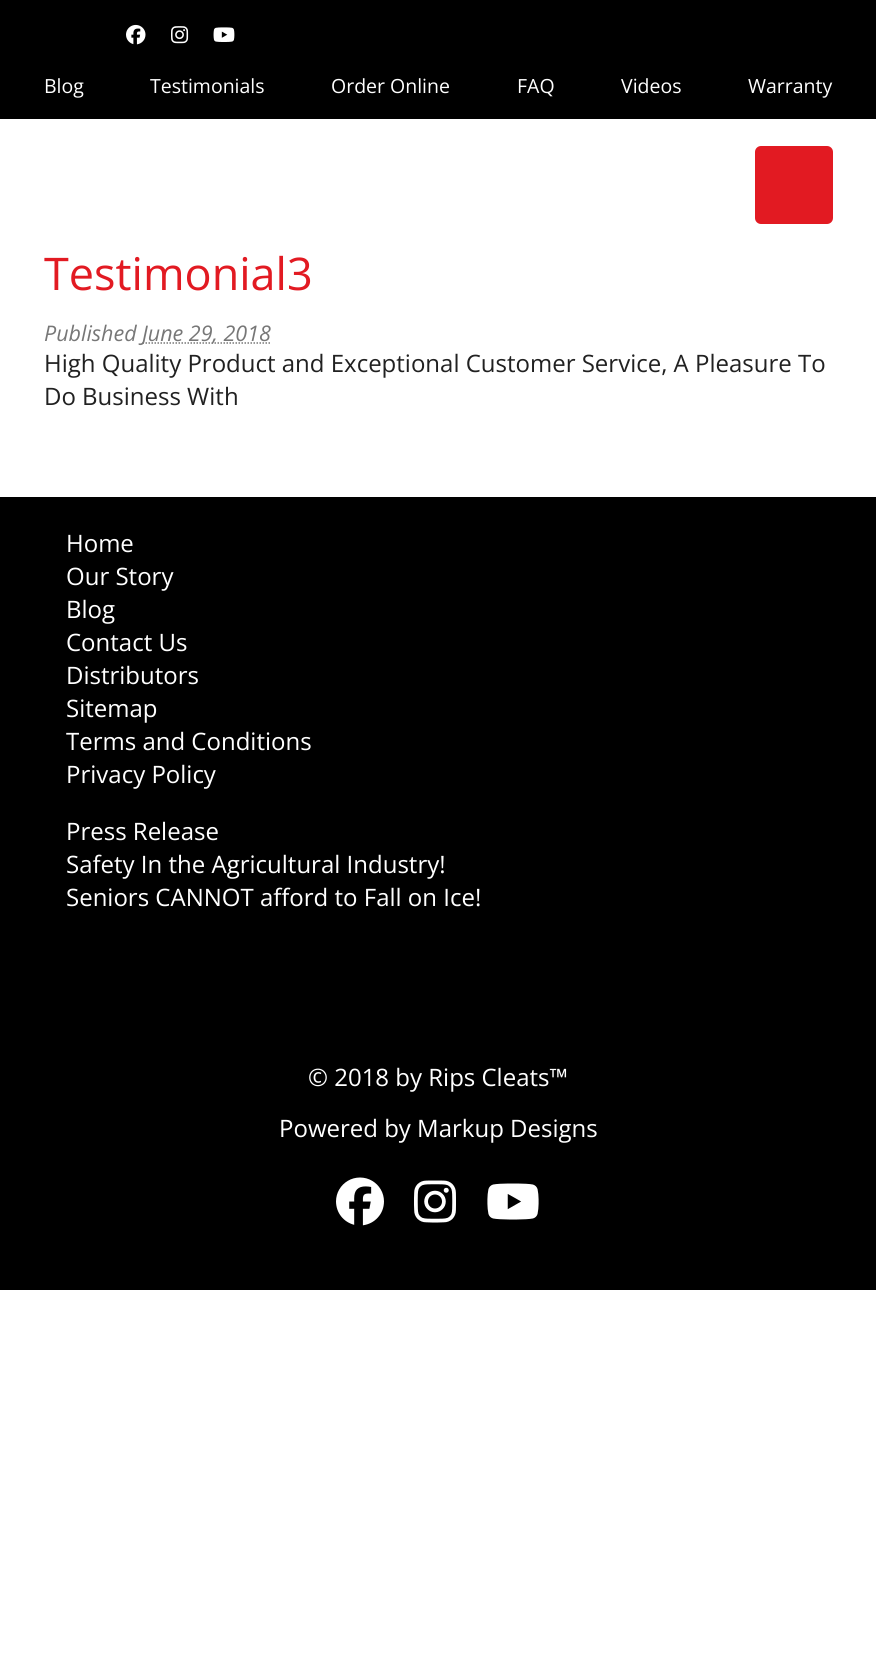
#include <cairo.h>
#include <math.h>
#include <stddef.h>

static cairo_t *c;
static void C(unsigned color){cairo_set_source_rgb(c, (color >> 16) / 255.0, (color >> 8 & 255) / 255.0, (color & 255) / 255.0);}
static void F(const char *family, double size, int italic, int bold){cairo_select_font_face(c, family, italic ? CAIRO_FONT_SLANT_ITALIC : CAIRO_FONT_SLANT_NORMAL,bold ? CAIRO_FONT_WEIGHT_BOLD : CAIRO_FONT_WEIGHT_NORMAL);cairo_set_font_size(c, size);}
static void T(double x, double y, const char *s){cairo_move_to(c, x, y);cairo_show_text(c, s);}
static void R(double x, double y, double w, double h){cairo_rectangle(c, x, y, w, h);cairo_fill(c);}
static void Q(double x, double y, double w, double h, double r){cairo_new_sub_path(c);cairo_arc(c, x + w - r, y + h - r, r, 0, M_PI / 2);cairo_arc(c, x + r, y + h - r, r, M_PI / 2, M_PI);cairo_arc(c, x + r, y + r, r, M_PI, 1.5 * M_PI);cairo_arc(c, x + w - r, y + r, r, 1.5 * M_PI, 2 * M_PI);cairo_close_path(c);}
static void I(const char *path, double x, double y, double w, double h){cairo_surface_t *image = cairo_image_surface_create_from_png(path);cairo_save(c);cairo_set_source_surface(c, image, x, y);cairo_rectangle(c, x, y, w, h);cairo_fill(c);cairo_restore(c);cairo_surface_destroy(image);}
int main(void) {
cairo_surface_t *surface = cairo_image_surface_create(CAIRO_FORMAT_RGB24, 876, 1663);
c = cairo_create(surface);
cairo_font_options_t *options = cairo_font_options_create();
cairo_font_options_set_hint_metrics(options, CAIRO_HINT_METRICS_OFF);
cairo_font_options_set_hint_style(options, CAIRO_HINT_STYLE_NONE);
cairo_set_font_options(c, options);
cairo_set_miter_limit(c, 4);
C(0xffffff);
cairo_paint(c);
C(0x000000);
R(0,0,876,119);
I("1.png",126,24,20,21);
I("2.png",171,26,18,18);
I("3.png",213,27,22,15);
F("Open Sans",19.5,0,0);
C(0xffffff);
T(44,93,"Blog");
T(150,93,"Testimonials");
T(331,93,"Order Online");
T(517,93,"FAQ");
T(621,93,"Videos");
T(748,93,"Warranty");
C(0xe21a22);
Q(755,146,78,78,6);
cairo_fill(c);
F("Open Sans",45,0,0);
T(44,290,"Testimonial3");
F("Open Sans",21.5,1,0);
C(0x777777);
T(44,341,"Published");
cairo_new_path(c);
cairo_move_to(c,142.5,343);
cairo_line_to(c,271.5,343);
cairo_set_line_width(c,1.5);
cairo_set_dash(c,(double[]){1.5,1.5},2,0);
cairo_stroke(c);
T(142,341,"June 29, 2018");
F("Open Sans",24,0,0);
C(0x212121);
T(44,372,"High Quality Product and Exceptional Customer Service, A Pleasure To");
T(44,405,"Do Business With");
C(0x000000);
R(0,497,876,793);
C(0xffffff);
T(66,552,"Home");
T(66,585,"Our Story");
T(66,618,"Blog");
T(66,651,"Contact Us");
T(66,684,"Distributors");
T(66,717,"Sitemap");
T(66,750,"Terms and Conditions");
T(66,783,"Privacy Policy");
T(66,840,"Press Release");
T(66,873,"Safety In the Agricultural Industry!");
T(66,906,"Seniors CANNOT afford to Fall on Ice!");
T(308,1086,"© 2018 by Rips Cleats™");
T(279,1137,"Powered by Markup Designs");
I("4.png",336,1177,48,49);
I("5.png",414,1180,42,43);
I("6.png",487,1183,52,37);
cairo_surface_write_to_png(surface, "o.png");
cairo_font_options_destroy(options);
cairo_destroy(c);
cairo_surface_destroy(surface);
return 0;
}
